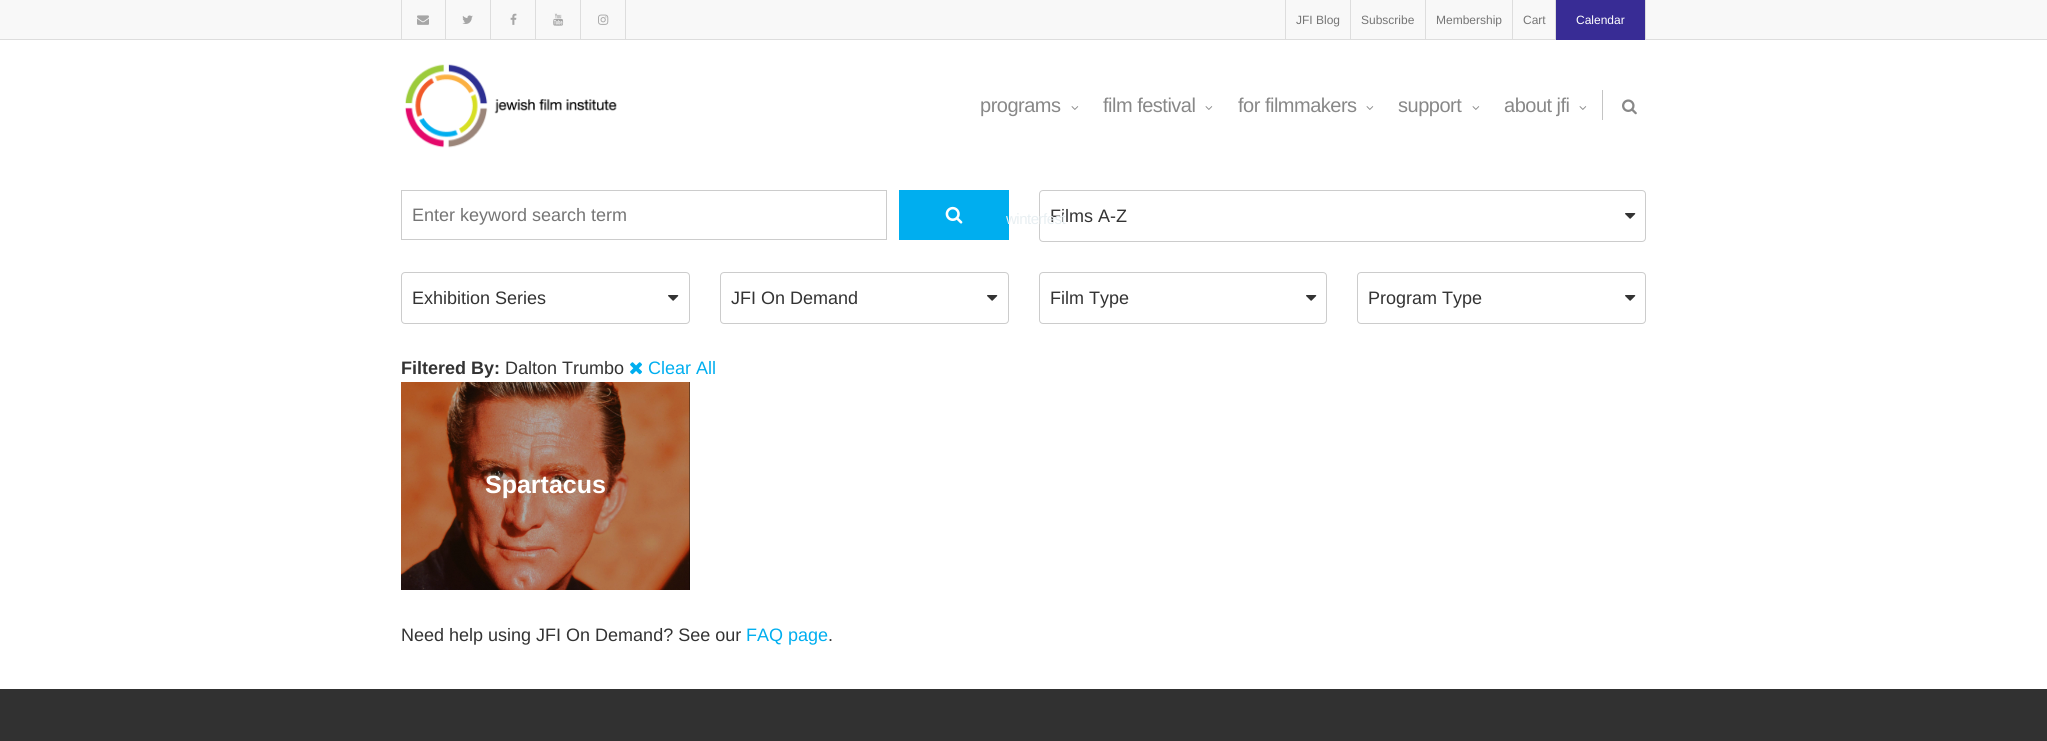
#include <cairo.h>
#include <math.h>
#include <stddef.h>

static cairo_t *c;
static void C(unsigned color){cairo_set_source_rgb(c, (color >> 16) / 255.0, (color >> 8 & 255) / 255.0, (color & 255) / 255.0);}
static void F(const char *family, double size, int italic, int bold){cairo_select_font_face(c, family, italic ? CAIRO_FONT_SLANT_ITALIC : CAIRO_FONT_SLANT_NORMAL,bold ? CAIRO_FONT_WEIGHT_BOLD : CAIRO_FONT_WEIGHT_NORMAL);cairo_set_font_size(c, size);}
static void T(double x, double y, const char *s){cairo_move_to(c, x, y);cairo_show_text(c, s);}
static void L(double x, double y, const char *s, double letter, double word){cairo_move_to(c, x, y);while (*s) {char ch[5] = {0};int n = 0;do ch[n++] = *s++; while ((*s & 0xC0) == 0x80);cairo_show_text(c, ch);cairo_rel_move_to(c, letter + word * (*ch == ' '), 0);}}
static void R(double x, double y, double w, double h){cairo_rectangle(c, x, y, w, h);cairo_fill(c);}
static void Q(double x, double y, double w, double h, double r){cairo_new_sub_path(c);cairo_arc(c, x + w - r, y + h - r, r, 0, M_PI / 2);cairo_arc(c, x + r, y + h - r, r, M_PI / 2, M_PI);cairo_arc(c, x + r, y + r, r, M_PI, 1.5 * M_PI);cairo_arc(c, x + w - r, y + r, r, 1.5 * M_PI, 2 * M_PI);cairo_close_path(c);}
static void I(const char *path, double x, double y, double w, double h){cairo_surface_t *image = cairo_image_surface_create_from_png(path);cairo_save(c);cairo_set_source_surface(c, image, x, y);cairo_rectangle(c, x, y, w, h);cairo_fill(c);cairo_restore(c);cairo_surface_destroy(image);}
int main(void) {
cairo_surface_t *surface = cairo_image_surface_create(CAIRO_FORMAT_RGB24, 2047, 741);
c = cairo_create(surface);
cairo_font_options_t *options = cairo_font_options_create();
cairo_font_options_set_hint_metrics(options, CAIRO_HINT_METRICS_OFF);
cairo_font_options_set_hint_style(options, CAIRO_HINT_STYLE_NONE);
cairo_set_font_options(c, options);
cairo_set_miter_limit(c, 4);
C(0xffffff);
cairo_paint(c);
C(0xf8f8f8);
R(0,0,2047,39);
C(0xdddddd);
R(0,39,2047,1);
R(445,0,1,40);
R(401,0,1,40);
I("1.png",417,15,12,10);
R(490,0,1,40);
I("2.png",462,15,11,9);
R(535,0,1,40);
I("3.png",510,13,7,12);
R(580,0,1,40);
I("4.png",553,13,11,13);
R(625,0,1,40);
I("5.png",598,14,11,11);
R(1350,0,1,40);
R(1285,0,1,40);
F("Liberation Sans",12,0,0);
C(0x757575);
T(1296,24,"JFI Blog");
C(0xdddddd);
R(1425,0,1,40);
C(0x757575);
T(1361,24,"Subscribe");
C(0xdddddd);
R(1512,0,1,40);
C(0x757575);
T(1436,24,"Membership");
C(0xdddddd);
R(1555,0,1,40);
C(0x757575);
T(1523,24,"Cart");
C(0x382c95);
R(1556,0,89,40);
C(0xdddddd);
R(1645,0,1,40);
C(0xffffff);
T(1576,24,"Calendar");
I("6.png",405,64,212,84);
F("Liberation Sans",20,0,0);
C(0x888888);
L(980,112,"programs",-.5,0);
I("7.png",1071,106,8,4);
C(0x00aeef);
R(899,190,110,50);
Q(1039.5,190.5,606,51,3.5);
C(0xcccccc);
cairo_set_line_width(c,1);
cairo_stroke(c);
F("Liberation Sans",18,0,0);
C(0x333333);
T(1050,222,"Films A-Z");
F("Liberation Sans",15,0,0);
C(0xe8eff2);
L(1006,224,"winterfest",-.5,0);
F("Liberation Sans",20,0,0);
C(0x888888);
L(1103,112,"film festival",-.5,0);
I("7.png",1205,106,8,4);
L(1238,112,"for filmmakers",-.5,0);
I("7.png",1366,106,8,4);
L(1398,112,"support",-.5,0);
I("7.png",1472,106,8,4);
L(1504,112,"about jfi",-.5,0);
I("7.png",1579,106,8,4);
C(0xc4c4c4);
R(1602,90,1,30);
I("8.png",1622,99,15,16);
cairo_rectangle(c,401.5,190.5,485,49);
C(0xcccccc);
cairo_stroke(c);
F("Liberation Sans",18,0,0);
C(0x757575);
T(412,221,"Enter keyword search term");
I("9.png",945,206,18,18);
I("10.png",1625,213,11,6);
Q(401.5,272.5,288,51,3.5);
C(0xcccccc);
cairo_stroke(c);
C(0x333333);
T(412,304,"Exhibition Series");
I("10.png",668,295,11,6);
Q(720.5,272.5,288,51,3.5);
C(0xcccccc);
cairo_stroke(c);
C(0x333333);
T(731,304,"JFI On Demand");
I("10.png",987,295,11,6);
Q(1039.5,272.5,287,51,3.5);
C(0xcccccc);
cairo_stroke(c);
C(0x333333);
T(1050,304,"Film Type");
I("10.png",1306,295,11,6);
Q(1357.5,272.5,288,51,3.5);
C(0xcccccc);
cairo_stroke(c);
C(0x333333);
T(1368,304,"Program Type");
I("10.png",1625,295,11,6);
F("Liberation Sans",18,0,1);
T(401,374,"Filtered By:");
F("Liberation Sans",18,0,0);
T(505,374,"Dalton Trumbo");
I("11.png",630,362,12,13);
C(0x00aeef);
T(648,374,"Clear All");
C(0x000000);
R(401,382,289,208);
I("12.png",401,382,289,208);
F("Liberation Sans",25,0,1);
C(0xffffff);
T(485,493,"Spartacus");
F("Liberation Sans",18,0,0);
C(0x333333);
T(401,641,"Need help using JFI On Demand? See our");
C(0x00aeef);
T(746,641,"FAQ page");
C(0x333333);
T(828,641,".");
C(0x313131);
R(0,689,2047,52);
cairo_surface_write_to_png(surface, "o.png");
cairo_font_options_destroy(options);
cairo_destroy(c);
cairo_surface_destroy(surface);
return 0;
}
